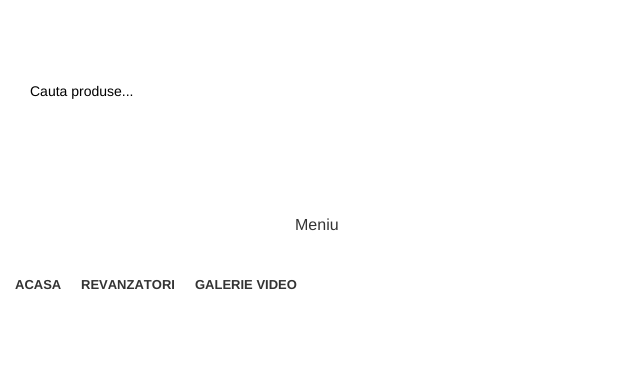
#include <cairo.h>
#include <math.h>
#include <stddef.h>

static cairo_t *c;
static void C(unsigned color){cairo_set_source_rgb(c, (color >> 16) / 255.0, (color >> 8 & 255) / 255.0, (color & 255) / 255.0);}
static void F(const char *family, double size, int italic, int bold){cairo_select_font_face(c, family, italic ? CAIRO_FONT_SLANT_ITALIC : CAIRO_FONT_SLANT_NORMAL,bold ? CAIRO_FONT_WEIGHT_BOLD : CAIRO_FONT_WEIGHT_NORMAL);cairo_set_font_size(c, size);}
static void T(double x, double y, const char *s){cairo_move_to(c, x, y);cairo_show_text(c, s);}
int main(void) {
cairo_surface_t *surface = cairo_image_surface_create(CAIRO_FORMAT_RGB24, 625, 380);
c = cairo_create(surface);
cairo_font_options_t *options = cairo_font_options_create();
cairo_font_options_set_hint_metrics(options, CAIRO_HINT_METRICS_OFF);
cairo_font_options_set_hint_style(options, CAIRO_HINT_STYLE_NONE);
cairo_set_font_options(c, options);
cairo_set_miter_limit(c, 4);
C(0xffffff);
cairo_paint(c);
F("Liberation Sans",14,0,0);
C(0x000000);
T(30,96,"Cauta produse...");
F("Liberation Sans",16,0,0);
C(0x333333);
T(295,230,"Meniu");
F("Liberation Sans",13,0,1);
T(15,289,"ACASA");
T(81,289,"REVANZATORI");
T(195,289,"GALERIE VIDEO");
cairo_surface_write_to_png(surface, "o.png");
cairo_font_options_destroy(options);
cairo_destroy(c);
cairo_surface_destroy(surface);
return 0;
}
